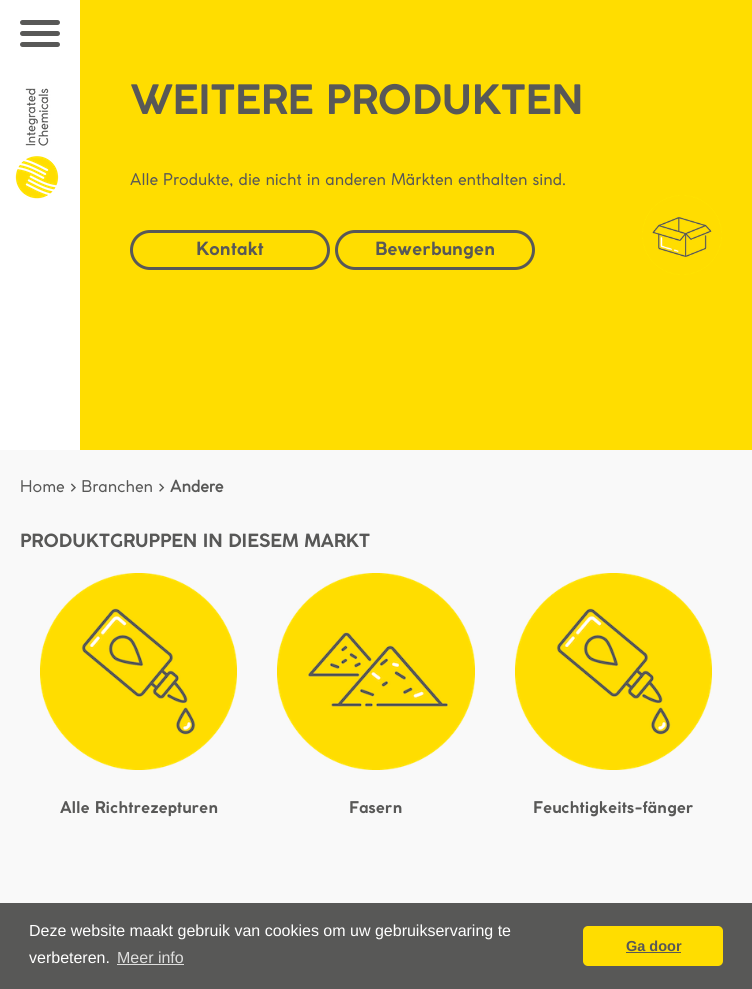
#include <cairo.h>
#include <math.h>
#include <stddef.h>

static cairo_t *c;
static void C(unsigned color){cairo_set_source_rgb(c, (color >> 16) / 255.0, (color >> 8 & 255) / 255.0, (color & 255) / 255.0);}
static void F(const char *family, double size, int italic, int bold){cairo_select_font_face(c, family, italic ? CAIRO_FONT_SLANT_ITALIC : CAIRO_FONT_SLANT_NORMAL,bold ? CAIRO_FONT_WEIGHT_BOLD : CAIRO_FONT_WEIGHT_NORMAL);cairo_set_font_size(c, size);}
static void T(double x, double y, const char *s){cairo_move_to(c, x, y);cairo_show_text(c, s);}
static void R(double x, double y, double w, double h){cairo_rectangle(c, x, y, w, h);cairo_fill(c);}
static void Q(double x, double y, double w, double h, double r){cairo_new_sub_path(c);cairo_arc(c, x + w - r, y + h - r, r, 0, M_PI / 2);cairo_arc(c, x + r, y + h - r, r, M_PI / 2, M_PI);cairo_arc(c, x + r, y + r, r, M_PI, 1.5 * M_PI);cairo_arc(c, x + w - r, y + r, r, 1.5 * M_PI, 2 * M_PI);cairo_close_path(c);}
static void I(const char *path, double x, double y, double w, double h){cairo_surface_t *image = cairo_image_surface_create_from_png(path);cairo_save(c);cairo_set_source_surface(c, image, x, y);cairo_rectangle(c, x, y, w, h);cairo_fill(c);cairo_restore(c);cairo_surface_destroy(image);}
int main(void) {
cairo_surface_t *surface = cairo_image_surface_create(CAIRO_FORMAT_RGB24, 752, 989);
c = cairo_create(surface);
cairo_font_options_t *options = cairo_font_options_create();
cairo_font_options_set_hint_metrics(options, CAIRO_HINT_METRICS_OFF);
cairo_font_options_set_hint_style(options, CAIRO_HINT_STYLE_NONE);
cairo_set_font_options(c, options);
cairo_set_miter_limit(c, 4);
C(0xffffff);
cairo_paint(c);
C(0x585857);
Q(20,20,40,5,2.5);
cairo_fill(c);
Q(20,31,40,5,2.5);
cairo_fill(c);
Q(20,42,40,5,2.5);
cairo_fill(c);
C(0xffdd00);
R(80,0,672,450);
I("1.png",15,88,44,111);
F("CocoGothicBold",40,0,0);
C(0x585857);
T(130,114,"WEITERE PRODUKTEN");
F("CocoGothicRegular",16,0,0);
T(130,185,"Alle Produkte, die nicht in anderen Märkten enthalten sind.");
Q(131.5,231.5,197,37,18.5);
cairo_set_line_width(c,3);
cairo_stroke(c);
F("CocoGothicBold",18,0,0);
T(196,255,"Kontakt");
Q(336.5,231.5,197,37,18.5);
cairo_stroke(c);
T(375,255,"Bewerbungen");
I("2.png",642,195,80,80);
C(0xf9f9f9);
R(0,450,752,453);
F("CocoGothicRegular",16,0,0);
C(0x585857);
T(20,492,"Home > Branchen >");
F("CocoGothicRegular",16,0,1);
T(170,492,"Andere");
F("CocoGothicBold",18,0,0);
T(20,547,"PRODUKTGRUPPEN IN DIESEM MARKT");
I("3.png",40,573,197,197);
F("CocoGothicBold",16,0,0);
T(60,813,"Alle Richtrezepturen");
I("4.png",277,573,198,197);
T(349,813,"Fasern");
I("3.png",515,573,197,197);
T(533,813,"Feuchtigkeits-fänger");
R(0,903,752,86);
F("Liberation Sans",16,0,0);
C(0xffffff);
T(29,936,"Deze website maakt gebruik van cookies om uw gebruikservaring te");
T(29,963,"verbeteren.");
C(0xdededd);
T(117,963,"Meer info");
R(117,964,67,1);
C(0xffdd00);
Q(583,926,140,40,5);
cairo_fill(c);
F("Liberation Sans",14.5,0,1);
C(0x585857);
T(626,951,"Ga door");
R(626,952,55,1);
cairo_surface_write_to_png(surface, "o.png");
cairo_font_options_destroy(options);
cairo_destroy(c);
cairo_surface_destroy(surface);
return 0;
}
